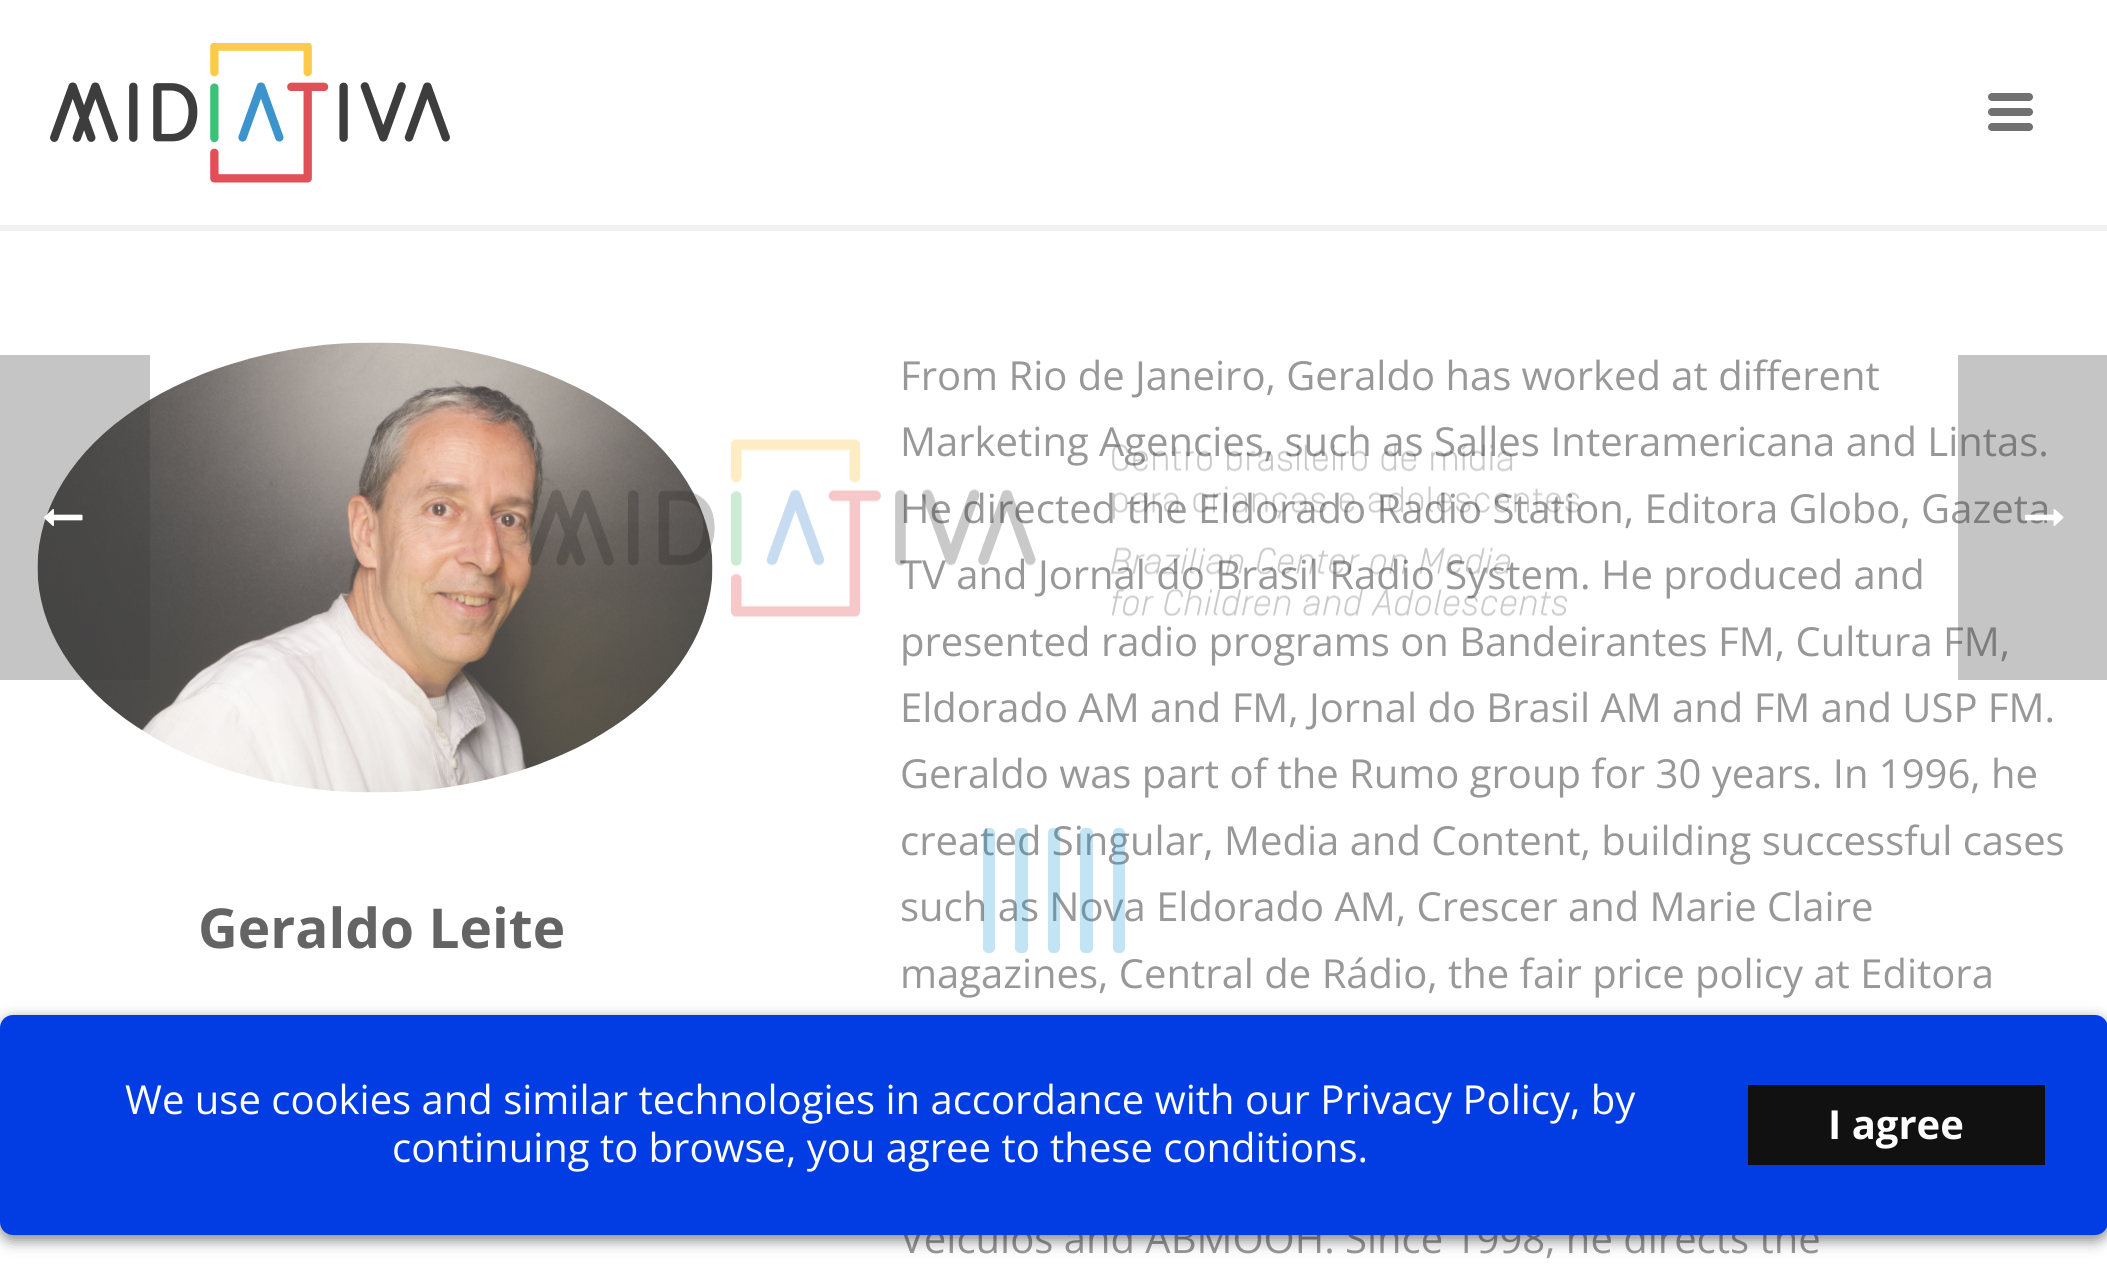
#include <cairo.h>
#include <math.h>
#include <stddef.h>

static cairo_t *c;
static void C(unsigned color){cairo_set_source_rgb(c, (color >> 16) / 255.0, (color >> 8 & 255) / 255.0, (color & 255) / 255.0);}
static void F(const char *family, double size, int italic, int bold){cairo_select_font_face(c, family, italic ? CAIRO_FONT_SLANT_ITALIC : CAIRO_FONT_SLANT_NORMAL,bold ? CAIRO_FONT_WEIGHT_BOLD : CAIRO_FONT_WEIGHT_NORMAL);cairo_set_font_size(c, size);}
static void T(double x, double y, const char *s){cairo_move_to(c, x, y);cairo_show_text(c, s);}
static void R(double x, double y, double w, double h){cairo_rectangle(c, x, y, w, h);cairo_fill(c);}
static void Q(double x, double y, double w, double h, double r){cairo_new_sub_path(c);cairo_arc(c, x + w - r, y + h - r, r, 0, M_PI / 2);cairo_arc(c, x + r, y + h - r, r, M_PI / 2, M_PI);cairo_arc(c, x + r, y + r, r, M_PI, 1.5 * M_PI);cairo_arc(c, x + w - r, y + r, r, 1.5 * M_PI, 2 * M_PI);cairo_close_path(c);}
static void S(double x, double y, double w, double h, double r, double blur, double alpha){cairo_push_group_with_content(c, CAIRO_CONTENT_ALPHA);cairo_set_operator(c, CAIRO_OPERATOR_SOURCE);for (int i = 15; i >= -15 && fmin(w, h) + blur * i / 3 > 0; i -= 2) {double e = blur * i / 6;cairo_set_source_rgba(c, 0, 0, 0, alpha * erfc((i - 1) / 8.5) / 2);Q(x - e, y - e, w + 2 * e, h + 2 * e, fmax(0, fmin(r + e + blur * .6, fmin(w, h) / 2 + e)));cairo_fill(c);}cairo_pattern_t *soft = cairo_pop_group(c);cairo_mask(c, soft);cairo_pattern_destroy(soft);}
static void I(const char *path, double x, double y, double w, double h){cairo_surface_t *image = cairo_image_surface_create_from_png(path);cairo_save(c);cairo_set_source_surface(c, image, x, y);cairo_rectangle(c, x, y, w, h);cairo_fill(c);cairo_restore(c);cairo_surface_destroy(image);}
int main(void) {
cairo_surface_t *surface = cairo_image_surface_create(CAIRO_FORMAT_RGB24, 2107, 1285);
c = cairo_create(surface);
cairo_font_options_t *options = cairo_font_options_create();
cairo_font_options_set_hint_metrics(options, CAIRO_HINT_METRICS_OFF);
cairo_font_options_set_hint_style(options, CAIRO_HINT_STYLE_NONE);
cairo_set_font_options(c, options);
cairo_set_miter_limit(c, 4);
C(0xffffff);
cairo_paint(c);
C(0xf1f1f1);
R(0,225,2107,6);
I("1.png",50,43,400,140);
C(0x717171);
Q(1988,93,45,8,4);
cairo_fill(c);
Q(1988,108,45,8,4);
cairo_fill(c);
Q(1988,123,45,8,4);
cairo_fill(c);
I("2.png",37,342,676,451);
F("Open Sans",55,0,1);
C(0x646464);
T(198,948,"Geraldo Leite");
F("Open Sans",40,0,0);
C(0x989898);
T(900,390,"From Rio de Janeiro, Geraldo has worked at different");
T(900,456,"Marketing Agencies, such as Salles Interamericana and Lintas.");
T(900,523,"He directed the Eldorado Radio Station, Editora Globo, Gazeta");
T(900,589,"TV and Jornal do Brasil Radio System. He produced and");
T(900,656,"presented radio programs on Bandeirantes FM, Cultura FM,");
T(900,722,"Eldorado AM and FM, Jornal do Brasil AM and FM and USP FM.");
T(900,788,"Geraldo was part of the Rumo group for 30 years. In 1996, he");
T(900,855,"created Singular, Media and Content, building successful cases");
T(900,921,"such as Nova Eldorado AM, Crescer and Marie Claire");
T(900,988,"magazines, Central de Rádio, the fair price policy at Editora");
T(900,1253,"Veículos and ABMOOH. Since 1998, he directs the");
I("3.png",528,439,1052,178);
cairo_set_source_rgba(c,0,0.561,0.835,0.24);
Q(983,828,12,125,5);
cairo_fill(c);
Q(1015,828,13,125,5);
cairo_fill(c);
Q(1048,828,12,125,5);
cairo_fill(c);
Q(1080,828,13,125,5);
cairo_fill(c);
Q(1113,828,12,125,5);
cairo_fill(c);
cairo_set_source_rgba(c,0.239,0.239,0.239,0.3);
R(0,355,150,325);
I("4.png",44,509,39,17);
R(1958,355,149,325);
I("5.png",2025,509,39,17);
C(0x000000);
S(0,1020,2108,220,13,7.5,.5);
C(0x023de4);
Q(0,1015,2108,220,13);
cairo_fill(c);
C(0xffffff);
T(125,1114,"We use cookies and similar technologies in accordance with our Privacy Policy, by");
T(392,1162,"continuing to browse, you agree to these conditions.");
C(0x111111);
R(1748,1085,297,80);
F("Open Sans",40,0,1);
C(0xffffff);
T(1828,1139,"I agree");
cairo_surface_write_to_png(surface, "o.png");
cairo_font_options_destroy(options);
cairo_destroy(c);
cairo_surface_destroy(surface);
return 0;
}
